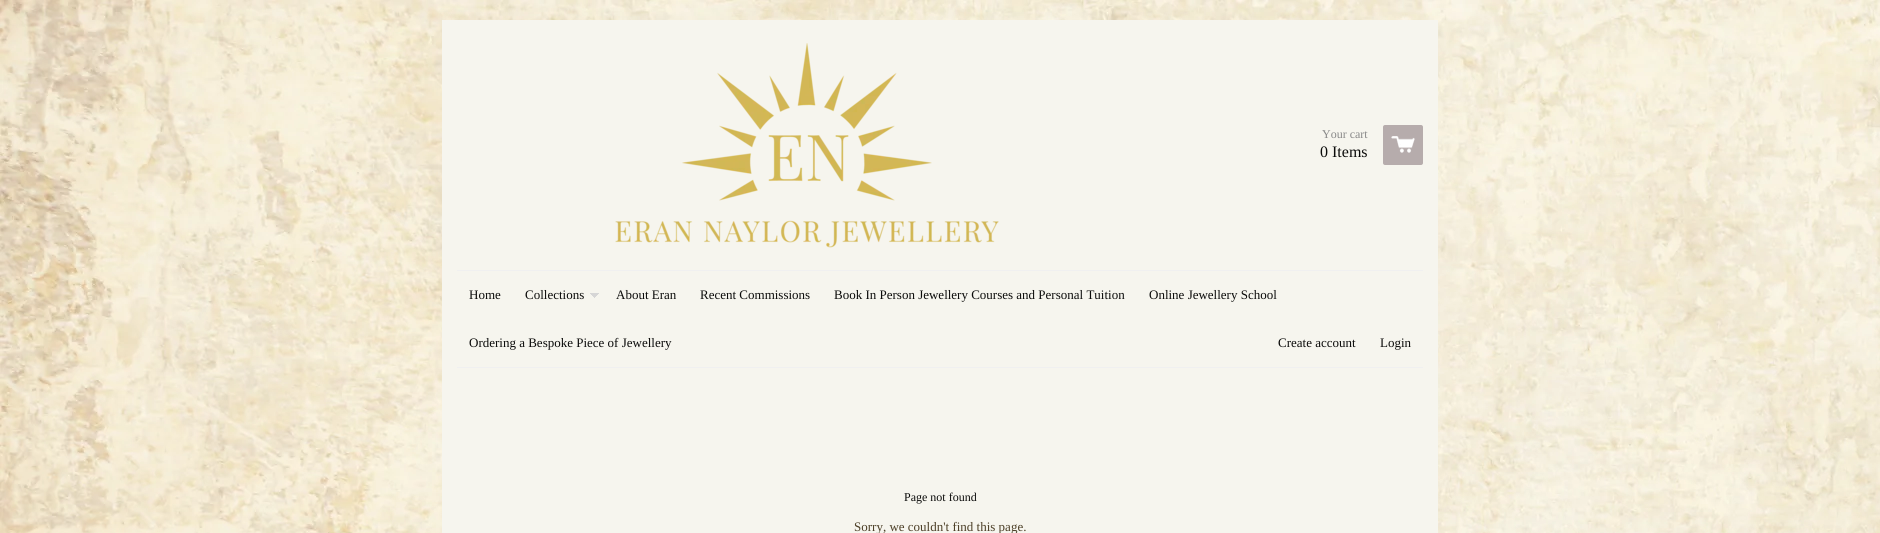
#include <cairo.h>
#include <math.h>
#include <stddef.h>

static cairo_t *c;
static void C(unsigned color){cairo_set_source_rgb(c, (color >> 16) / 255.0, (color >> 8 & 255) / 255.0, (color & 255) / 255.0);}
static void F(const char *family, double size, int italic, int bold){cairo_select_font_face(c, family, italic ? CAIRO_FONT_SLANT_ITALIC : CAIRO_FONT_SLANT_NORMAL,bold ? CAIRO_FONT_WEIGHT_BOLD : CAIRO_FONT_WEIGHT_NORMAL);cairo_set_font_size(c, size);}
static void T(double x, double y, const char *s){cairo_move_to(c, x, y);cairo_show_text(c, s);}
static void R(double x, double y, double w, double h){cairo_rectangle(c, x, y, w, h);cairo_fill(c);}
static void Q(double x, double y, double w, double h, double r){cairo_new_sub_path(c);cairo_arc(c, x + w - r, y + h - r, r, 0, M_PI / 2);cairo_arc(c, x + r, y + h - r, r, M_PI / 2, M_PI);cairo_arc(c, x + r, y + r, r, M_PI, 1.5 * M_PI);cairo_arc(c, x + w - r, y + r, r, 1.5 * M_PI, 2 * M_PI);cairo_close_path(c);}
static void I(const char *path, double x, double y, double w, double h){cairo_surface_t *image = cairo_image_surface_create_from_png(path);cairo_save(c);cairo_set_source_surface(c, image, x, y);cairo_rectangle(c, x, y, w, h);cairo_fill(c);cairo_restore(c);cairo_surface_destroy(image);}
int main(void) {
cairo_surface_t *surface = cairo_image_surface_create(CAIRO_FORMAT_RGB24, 1880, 533);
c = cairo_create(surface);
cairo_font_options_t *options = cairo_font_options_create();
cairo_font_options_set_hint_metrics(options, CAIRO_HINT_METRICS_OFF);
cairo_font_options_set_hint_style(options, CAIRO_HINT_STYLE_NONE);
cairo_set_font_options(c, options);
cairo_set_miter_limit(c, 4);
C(0xffffff);
cairo_paint(c);
I("1.png",0,0,1880,20);
I("2.png",0,20,1880,513);
C(0xf6f5ee);
R(442,20,996,513);
I("3.png",615,43,384,205);
F("Liberation Serif",12,0,0);
C(0x888888);
T(1322,138,"Your cart");
F("Liberation Serif",16,0,0);
C(0x0b0b0a);
T(1320,157,"0 Items");
C(0xb6acac);
Q(1383,125,40,40,2);
cairo_fill(c);
I("4.png",1391,136,24,17);
C(0xf0f0f0);
R(457,270,966,1);
R(457,367,966,1);
F("Liberation Serif",13,0,0);
C(0x0b0b0a);
T(469,299,"Home");
I("5.png",590,293,9,5);
T(525,299,"Collections");
T(616,299,"About Eran");
T(700,299,"Recent Commissions");
T(834,299,"Book In Person Jewellery Courses and Personal Tuition");
T(1149,299,"Online Jewellery School");
T(469,347,"Ordering a Bespoke Piece of Jewellery");
T(1278,347,"Create account");
T(1380,347,"Login");
F("Liberation Serif",12,0,0);
T(904,501,"Page not found");
F("Liberation Serif",13,0,0);
C(0x4c3f27);
T(854,531,"Sorry, we couldn't find this page.");
cairo_surface_write_to_png(surface, "o.png");
cairo_font_options_destroy(options);
cairo_destroy(c);
cairo_surface_destroy(surface);
return 0;
}
